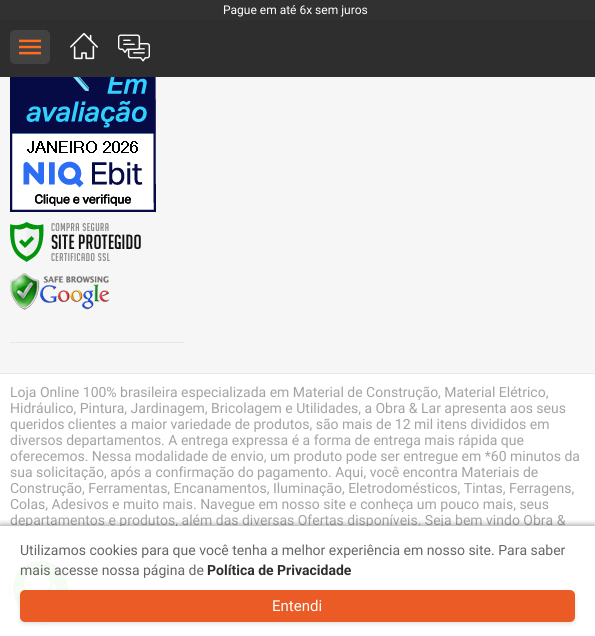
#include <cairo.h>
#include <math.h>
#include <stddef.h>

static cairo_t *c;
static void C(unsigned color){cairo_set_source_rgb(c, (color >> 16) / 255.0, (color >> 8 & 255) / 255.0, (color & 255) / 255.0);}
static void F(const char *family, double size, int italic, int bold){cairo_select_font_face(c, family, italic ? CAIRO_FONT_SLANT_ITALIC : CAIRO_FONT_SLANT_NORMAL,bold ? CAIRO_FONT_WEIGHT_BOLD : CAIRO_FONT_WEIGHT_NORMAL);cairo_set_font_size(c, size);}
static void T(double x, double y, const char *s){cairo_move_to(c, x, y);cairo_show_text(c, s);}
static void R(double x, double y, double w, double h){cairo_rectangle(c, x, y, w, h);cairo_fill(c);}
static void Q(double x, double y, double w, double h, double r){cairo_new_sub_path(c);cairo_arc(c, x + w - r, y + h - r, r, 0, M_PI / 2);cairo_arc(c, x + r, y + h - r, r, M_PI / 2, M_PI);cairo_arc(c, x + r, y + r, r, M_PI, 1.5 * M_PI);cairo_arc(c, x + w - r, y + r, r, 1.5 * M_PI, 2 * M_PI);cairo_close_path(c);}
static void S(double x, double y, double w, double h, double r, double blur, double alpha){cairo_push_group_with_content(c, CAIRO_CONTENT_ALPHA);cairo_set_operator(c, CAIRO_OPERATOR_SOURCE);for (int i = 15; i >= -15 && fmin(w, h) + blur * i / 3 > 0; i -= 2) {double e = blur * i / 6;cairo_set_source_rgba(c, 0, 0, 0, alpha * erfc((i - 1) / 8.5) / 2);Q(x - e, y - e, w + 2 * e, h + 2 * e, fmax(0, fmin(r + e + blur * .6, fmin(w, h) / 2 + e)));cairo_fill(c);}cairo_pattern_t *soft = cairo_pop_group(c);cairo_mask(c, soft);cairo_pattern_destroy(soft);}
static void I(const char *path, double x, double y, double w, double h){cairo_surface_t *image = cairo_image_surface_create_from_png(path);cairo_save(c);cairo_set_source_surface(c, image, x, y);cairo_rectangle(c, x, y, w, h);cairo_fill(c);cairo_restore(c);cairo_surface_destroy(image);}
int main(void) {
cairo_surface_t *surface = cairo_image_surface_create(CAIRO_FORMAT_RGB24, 595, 636);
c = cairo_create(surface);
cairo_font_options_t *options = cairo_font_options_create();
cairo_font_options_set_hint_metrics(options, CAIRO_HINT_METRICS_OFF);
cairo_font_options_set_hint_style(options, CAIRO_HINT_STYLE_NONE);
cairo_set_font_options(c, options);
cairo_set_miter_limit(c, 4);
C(0xffffff);
cairo_paint(c);
C(0x2e2e2e);
R(0,20,595,57);
C(0x313131);
R(0,0,595,20);
F("Roboto",12,0,0);
C(0xffffff);
T(223,14,"Pague em até 6x sem juros");
C(0x424242);
Q(10,30,40,34,5);
cairo_fill(c);
I("1.png",19,39,22,16);
I("2.png",70,32,28,28);
I("3.png",118,34,32,28);
C(0xf6f6f6);
R(0,77,595,296);
C(0xe8e8e8);
R(10,342,175,1);
I("4.png",10,77,146,135);
I("5.png",10,222,131,40);
I("6.png",10,273,100,37);
R(0,373,595,1);
F("Roboto",14,0,0);
C(0xa3a3a3);
T(10,397,"Loja Online 100% brasileira especializada em Material de Construção, Material Elétrico,");
T(10,413,"Hidráulico, Pintura, Jardinagem, Bricolagem e Utilidades, a Obra & Lar apresenta aos seus");
T(10,429,"queridos clientes a maior variedade de produtos, são mais de 12 mil itens divididos em");
T(10,445,"diversos departamentos. A entrega expressa é a forma de entrega mais rápida que");
T(10,461,"oferecemos. Nessa modalidade de envio, um produto pode ser entregue em *60 minutos da");
T(10,477,"sua solicitação, após a confirmação do pagamento. Aqui, você encontra Materiais de");
T(10,493,"Construção, Ferramentas, Encanamentos, Iluminação, Eletrodomésticos, Tintas, Ferragens,");
T(10,509,"Colas, Adesivos e muito mais. Navegue em nosso site e conheça um pouco mais, seus");
T(10,525,"departamentos e produtos, além das diversas Ofertas disponíveis. Seja bem vindo Obra &");
C(0xb7b7b7);
S(14,566,53,53,26.5,2.5,.5);
C(0x33bb13);
cairo_arc(c,40.5,588.5,27.5,0,2 * M_PI);
cairo_fill(c);
I("7.png",24,572,32,18);
cairo_save(c);
cairo_rectangle(c,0,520,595,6);
cairo_clip(c);
C(0x000000);
S(0,526,595,110,0,3.5,.5);
cairo_restore(c);
cairo_set_source_rgba(c,1,1,1,0.95);
R(11,526,432,96);
C(0x666666);
T(20,555,"Utilizamos cookies para que você tenha a melhor experiência em nosso site. Para saber");
T(20,575,"mais acesse nossa página de");
F("Roboto",14,0,1);
C(0x2e2e2e);
T(207,575,"Política de Privacidade");
C(0xcbcbcb);
S(20,592,555,32,5,2,.55);
C(0xeb5b26);
Q(20,590,555,32,5);
cairo_fill(c);
F("Roboto",15,0,0);
C(0xffffff);
T(272,611,"Entendi");
cairo_surface_write_to_png(surface, "o.png");
cairo_font_options_destroy(options);
cairo_destroy(c);
cairo_surface_destroy(surface);
return 0;
}
